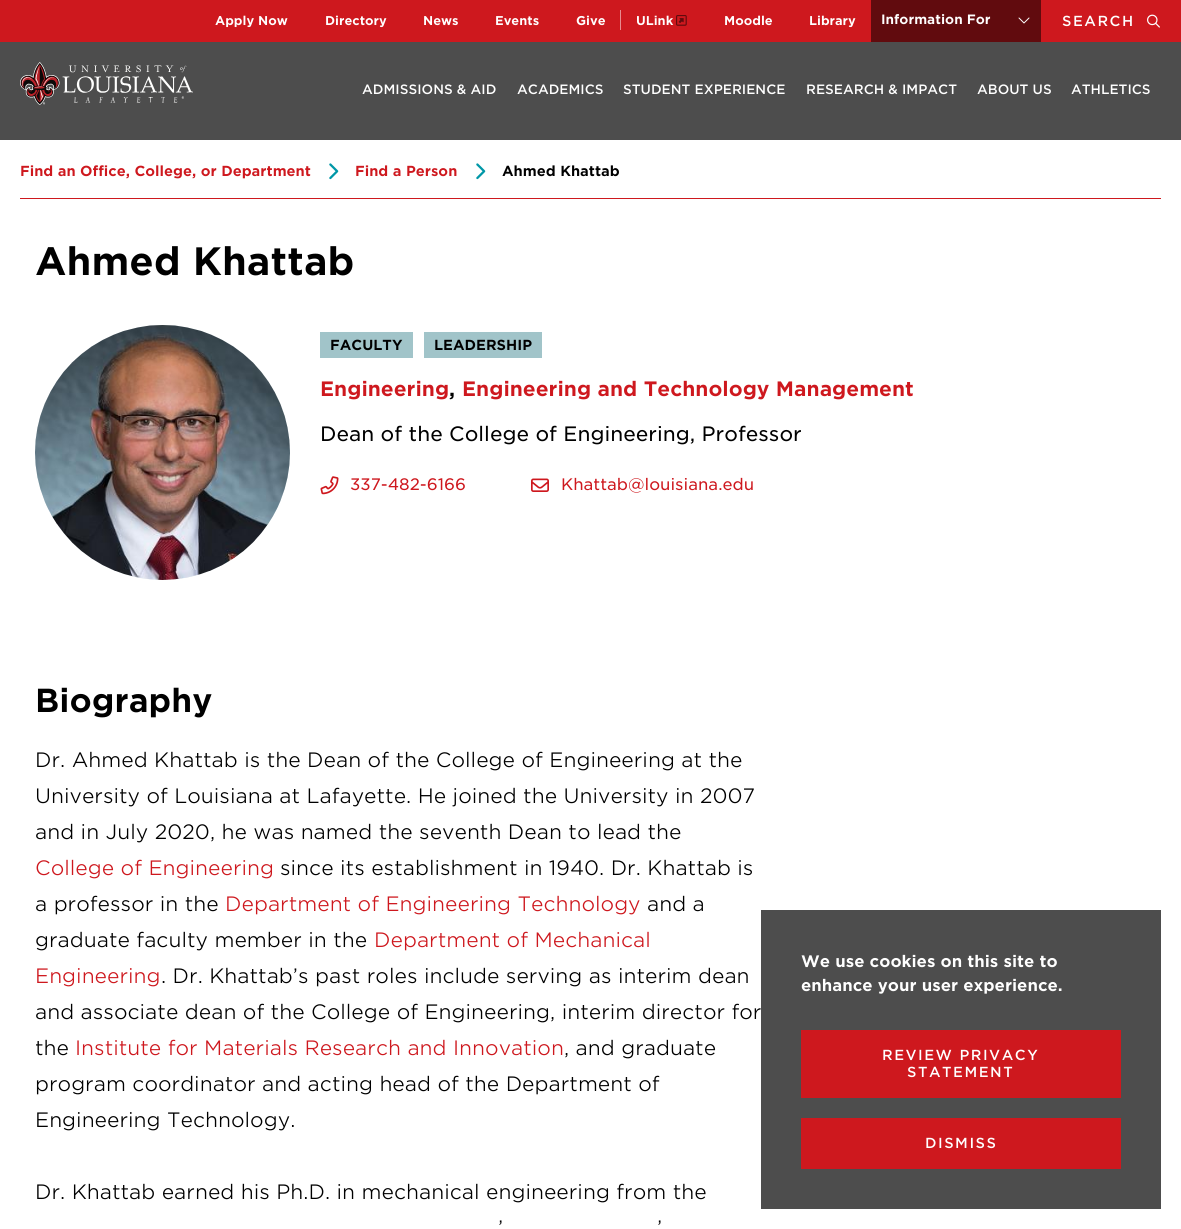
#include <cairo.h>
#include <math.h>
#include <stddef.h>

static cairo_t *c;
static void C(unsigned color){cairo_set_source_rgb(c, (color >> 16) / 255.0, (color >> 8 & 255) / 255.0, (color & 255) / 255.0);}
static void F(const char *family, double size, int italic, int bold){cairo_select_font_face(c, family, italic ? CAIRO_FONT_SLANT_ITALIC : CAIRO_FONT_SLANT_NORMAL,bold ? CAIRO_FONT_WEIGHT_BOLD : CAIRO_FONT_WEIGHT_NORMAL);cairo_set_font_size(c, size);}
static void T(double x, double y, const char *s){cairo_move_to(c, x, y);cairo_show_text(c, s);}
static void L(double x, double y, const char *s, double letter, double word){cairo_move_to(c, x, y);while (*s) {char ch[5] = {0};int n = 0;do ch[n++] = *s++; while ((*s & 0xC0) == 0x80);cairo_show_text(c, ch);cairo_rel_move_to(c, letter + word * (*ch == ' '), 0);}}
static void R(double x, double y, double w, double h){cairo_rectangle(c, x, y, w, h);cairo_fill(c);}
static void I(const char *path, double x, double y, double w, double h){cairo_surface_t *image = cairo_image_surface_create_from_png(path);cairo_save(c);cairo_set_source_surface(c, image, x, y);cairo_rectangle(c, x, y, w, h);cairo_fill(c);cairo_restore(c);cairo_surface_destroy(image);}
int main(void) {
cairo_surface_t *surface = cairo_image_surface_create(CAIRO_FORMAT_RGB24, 1181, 1229);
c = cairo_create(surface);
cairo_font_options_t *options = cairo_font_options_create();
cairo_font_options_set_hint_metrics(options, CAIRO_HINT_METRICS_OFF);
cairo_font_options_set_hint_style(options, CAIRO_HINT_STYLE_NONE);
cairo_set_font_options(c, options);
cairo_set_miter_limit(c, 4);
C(0xffffff);
cairo_paint(c);
C(0xce181e);
R(0,0,1181,42);
F("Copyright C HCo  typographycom",12.25,0,0);
C(0xffffff);
T(215,25,"Apply Now");
T(325,25,"Directory");
T(423,25,"News");
T(495,25,"Events");
T(576,25,"Give");
C(0xe78c8f);
R(620,10,1,20);
C(0xffffff);
T(636,25,"ULink");
I("1.png",676,15,11,11);
T(724,25,"Moodle");
T(809,25,"Library");
C(0x610b0e);
R(871,0,170,42);
F("Copyright C HCo  typographycom",13,0,0);
C(0xffffff);
T(881,24,"Information For");
I("2.png",1018,17,12,7);
F("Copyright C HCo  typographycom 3 Light",14,0,0);
L(1062,26,"SEARCH",1.5,0);
I("3.png",1147,14,13,14);
C(0x4d4d4d);
R(0,42,1181,98);
I("4.png",20,62,173,43);
F("Copyright C HCo  typographycom 3 Light",13,0,0);
C(0xffffff);
T(362,94,"ADMISSIONS & AID");
T(517,94,"ACADEMICS");
T(623,94,"STUDENT EXPERIENCE");
T(806,94,"RESEARCH & IMPACT");
T(977,94,"ABOUT US");
T(1071,94,"ATHLETICS");
C(0xce181e);
R(20,198,1141,1);
F("Copyright C HCo  typographycom",14,0,0);
T(20,176,"Find an Office, College, or Department");
I("5.png",329,163,10,17);
T(355,176,"Find a Person");
I("5.png",476,163,10,17);
C(0x000000);
T(502,176,"Ahmed Khattab");
F("Copyright C HCo  typographycom",38,0,0);
T(35,275,"Ahmed Khattab");
C(0xe9eff0);
cairo_new_path(c);
cairo_arc(c,162.5,452.5,127.5,0,2 * M_PI);
cairo_fill(c);
I("6.png",35,325,255,255);
C(0xa1c4c9);
R(320,332,93,26);
F("Copyright C HCo  typographycom",14,0,0);
C(0x000000);
T(330,350,"FACULTY");
C(0xa1c4c9);
R(424,332,118,26);
C(0x000000);
T(434,350,"LEADERSHIP");
F("Copyright C HCo  typographycom",20,0,0);
C(0xce181e);
T(320,396,"Engineering");
C(0x000000);
T(449,396,",");
C(0xce181e);
T(462,396,"Engineering and Technology Management");
F("Copyright C HCo  typographycom Light",20,0,0);
C(0x000000);
T(320,441,"Dean of the College of Engineering, Professor");
I("7.png",320,476,19,19);
F("Copyright C HCo  typographycom Light",16,0,0);
C(0xce181e);
T(350,490,"337-482-6166");
I("8.png",531,478,18,14);
T(561,490,"Khattab@louisiana.edu");
F("Copyright C HCo  typographycom",32,0,0);
C(0x000000);
T(35,712,"Biography");
F("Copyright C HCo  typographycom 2 Light",20,0,0);
T(35,767,"Dr. Ahmed Khattab is the Dean of the College of Engineering at the");
T(35,803,"University of Louisiana at Lafayette. He joined the University in 2007");
T(35,839,"and in July 2020, he was named the seventh Dean to lead the");
C(0xce181e);
T(35,875,"College of Engineering");
C(0x000000);
T(280,875,"since its establishment in 1940. Dr. Khattab is");
T(35,911,"a professor in the");
C(0xce181e);
T(225,911,"Department of Engineering Technology");
C(0x000000);
T(647,911,"and a");
T(35,947,"graduate faculty member in the");
C(0xce181e);
T(374,947,"Department of Mechanical");
T(35,983,"Engineering");
C(0x000000);
T(161,983,". Dr. Khattab’s past roles include serving as interim dean");
T(35,1019,"and associate dean of the College of Engineering, interim director for");
T(35,1055,"the");
C(0xce181e);
T(75,1055,"Institute for Materials Research and Innovation");
C(0x000000);
T(564,1055,", and graduate");
T(35,1091,"program coordinator and acting head of the Department of");
T(35,1127,"Engineering Technology.");
T(35,1199,"Dr. Khattab earned his Ph.D. in mechanical engineering from the");
T(498,1235,"’");
T(657,1235,"’");
C(0x4d4d4d);
R(761,910,400,299);
F("Copyright C HCo  typographycom",16,0,0);
C(0xffffff);
T(801,967,"We use cookies on this site to");
T(801,991,"enhance your user experience.");
C(0xce181e);
R(801,1030,320,68);
F("Copyright C HCo  typographycom 3 Light",14,0,0);
C(0xffffff);
L(882,1060,"REVIEW PRIVACY",1.5,0);
L(907,1077,"STATEMENT",1.5,0);
C(0xce181e);
R(801,1118,320,51);
C(0xffffff);
L(925,1148,"DISMISS",1.5,0);
cairo_surface_write_to_png(surface, "o.png");
cairo_font_options_destroy(options);
cairo_destroy(c);
cairo_surface_destroy(surface);
return 0;
}
